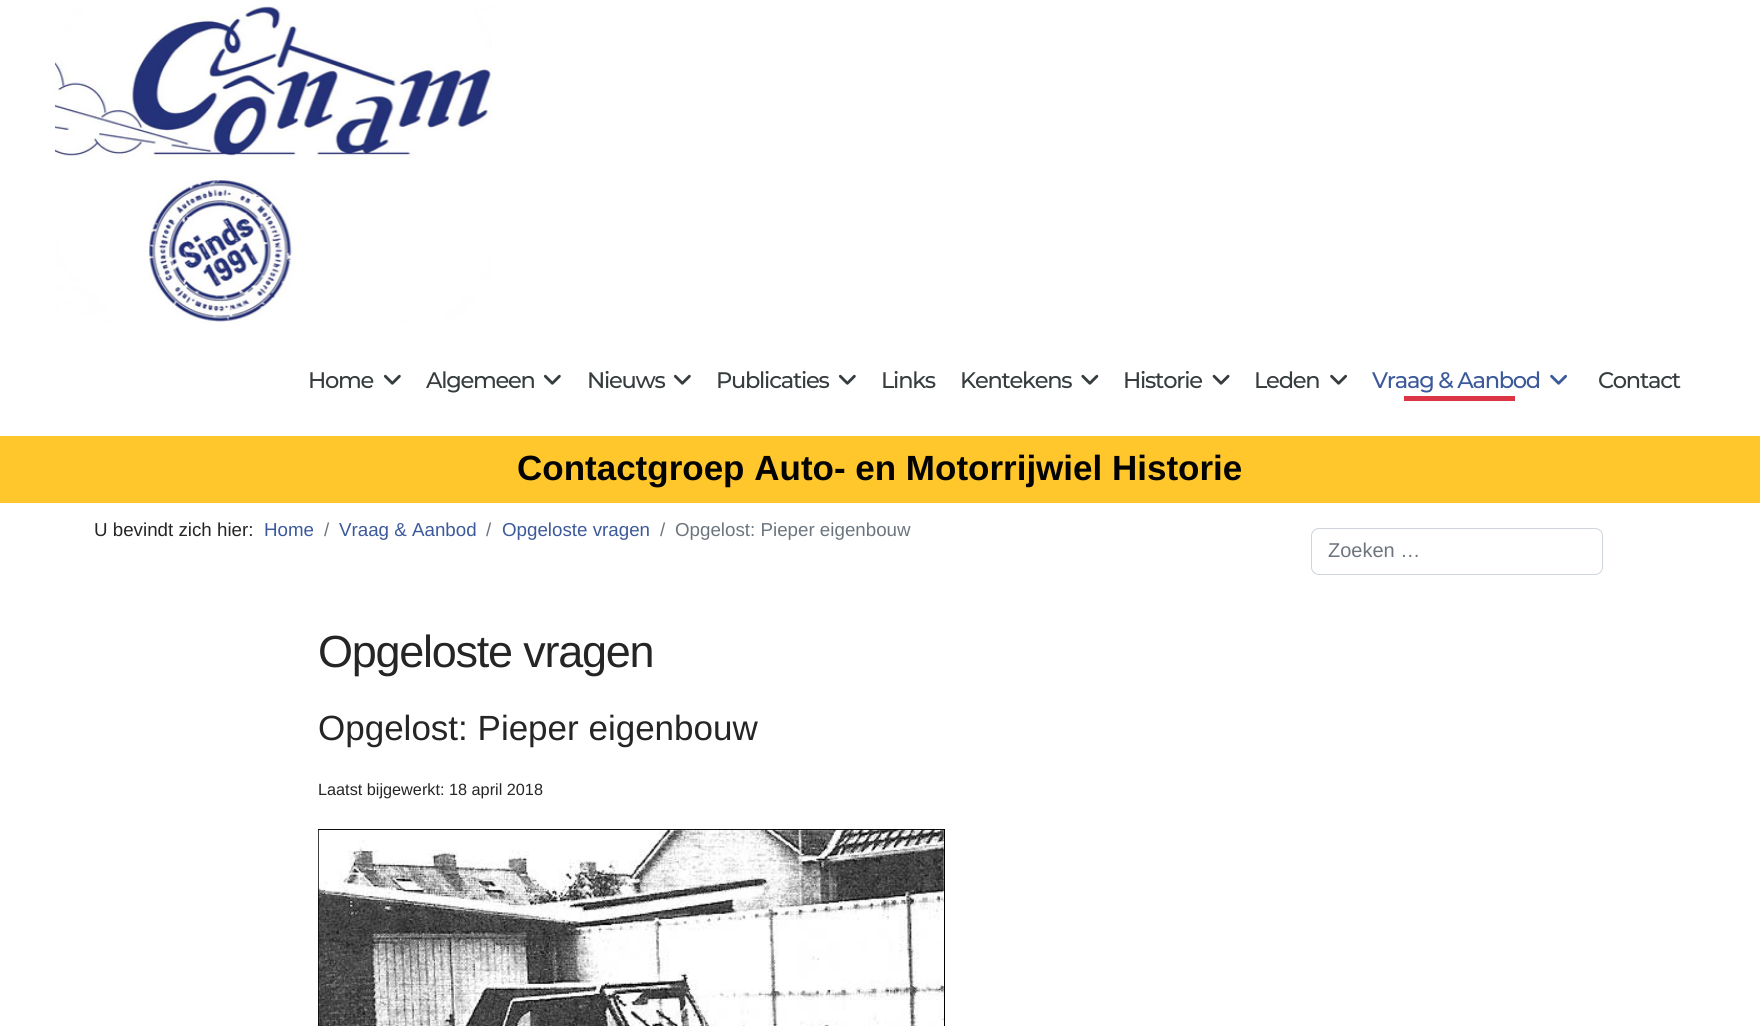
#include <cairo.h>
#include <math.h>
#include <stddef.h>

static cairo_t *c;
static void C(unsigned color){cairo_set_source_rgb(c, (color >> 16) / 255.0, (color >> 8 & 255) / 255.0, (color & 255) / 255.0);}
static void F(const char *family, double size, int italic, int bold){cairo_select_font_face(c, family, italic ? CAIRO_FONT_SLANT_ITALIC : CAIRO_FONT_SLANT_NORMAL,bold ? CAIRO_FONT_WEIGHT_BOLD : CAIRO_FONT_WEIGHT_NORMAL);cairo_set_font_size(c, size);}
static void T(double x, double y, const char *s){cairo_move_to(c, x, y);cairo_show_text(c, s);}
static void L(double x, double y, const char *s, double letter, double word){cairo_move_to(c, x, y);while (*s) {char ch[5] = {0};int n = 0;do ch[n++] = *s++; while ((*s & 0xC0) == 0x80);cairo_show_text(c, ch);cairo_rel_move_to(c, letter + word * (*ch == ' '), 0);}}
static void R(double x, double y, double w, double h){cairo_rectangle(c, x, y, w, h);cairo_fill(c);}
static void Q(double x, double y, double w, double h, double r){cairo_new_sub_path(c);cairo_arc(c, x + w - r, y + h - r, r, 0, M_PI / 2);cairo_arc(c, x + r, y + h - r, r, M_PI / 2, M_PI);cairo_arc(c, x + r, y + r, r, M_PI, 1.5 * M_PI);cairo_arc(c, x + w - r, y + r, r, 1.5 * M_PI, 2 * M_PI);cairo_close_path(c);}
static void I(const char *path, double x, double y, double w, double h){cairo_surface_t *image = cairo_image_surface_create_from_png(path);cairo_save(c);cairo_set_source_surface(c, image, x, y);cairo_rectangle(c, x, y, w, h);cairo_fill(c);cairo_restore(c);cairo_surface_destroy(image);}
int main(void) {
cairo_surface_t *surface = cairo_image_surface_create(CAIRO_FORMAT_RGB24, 1760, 1026);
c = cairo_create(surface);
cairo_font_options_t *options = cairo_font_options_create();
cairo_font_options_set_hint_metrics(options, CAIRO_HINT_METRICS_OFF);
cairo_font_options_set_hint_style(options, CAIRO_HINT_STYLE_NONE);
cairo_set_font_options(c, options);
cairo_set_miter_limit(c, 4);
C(0xffffff);
cairo_paint(c);
I("1.png",55,6,437,318);
F("Montserrat Medium",22.5,0,0);
C(0x373d3f);
L(308,388,"Home",-1.25,0);
I("2.png",383,374,18,11);
L(426,388,"Algemeen",-1.25,0);
I("2.png",543,374,18,11);
L(587,388,"Nieuws",-1.25,0);
I("2.png",673,374,18,11);
L(716,388,"Publicaties",-1.25,0);
I("2.png",838,374,18,11);
L(881,388,"Links",-1.25,0);
L(960,388,"Kentekens",-1.25,0);
I("3.png",1081,374,18,11);
L(1123,388,"Historie",-1.25,0);
I("4.png",1212,374,18,11);
L(1254,388,"Leden",-1.25,0);
I("5.png",1330,374,17,11);
C(0x3c599b);
L(1372,388,"Vraag & Aanbod",-1.25,0);
I("6.png",1550,374,17,11);
C(0xdc3545);
R(1404,396,111,5);
C(0x373d3f);
L(1598,388,"Contact",-1.25,0);
C(0xffc72c);
R(0,436,1760,67);
F("Liberation Sans",35,0,1);
C(0x030303);
T(517,480,"Contactgroep Auto- en Motorrijwiel Historie");
F("Liberation Sans",18.75,0,0);
C(0x252525);
T(94,536,"U bevindt zich hier:");
C(0x3c599b);
T(264,536,"Home");
C(0x6c757d);
T(324,536,"/");
C(0x3c599b);
T(339,536,"Vraag & Aanbod");
C(0x6c757d);
T(486,536,"/");
C(0x3c599b);
T(502,536,"Opgeloste vragen");
C(0x6c757d);
T(660,536,"/");
T(675,536,"Opgelost: Pieper eigenbouw");
Q(1311.5,528.5,291,46,7.5);
C(0xced4da);
cairo_set_line_width(c,1);
cairo_stroke(c);
F("Liberation Sans",20,0,0);
C(0x6c757d);
T(1328,557,"Zoeken …");
F("Liberation Sans",45,0,0);
C(0x252525);
L(318,667,"Opgeloste vragen",-1.25,0);
F("Liberation Sans",35,0,0);
T(318,740,"Opgelost: Pieper eigenbouw");
F("Liberation Sans",16.25,0,0);
T(318,795,"Laatst bijgewerkt: 18 april 2018");
cairo_rectangle(c,318.5,829.5,626,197);
C(0x000000);
cairo_stroke(c);
I("7.png",318,829,626,197);
cairo_surface_write_to_png(surface, "o.png");
cairo_font_options_destroy(options);
cairo_destroy(c);
cairo_surface_destroy(surface);
return 0;
}
